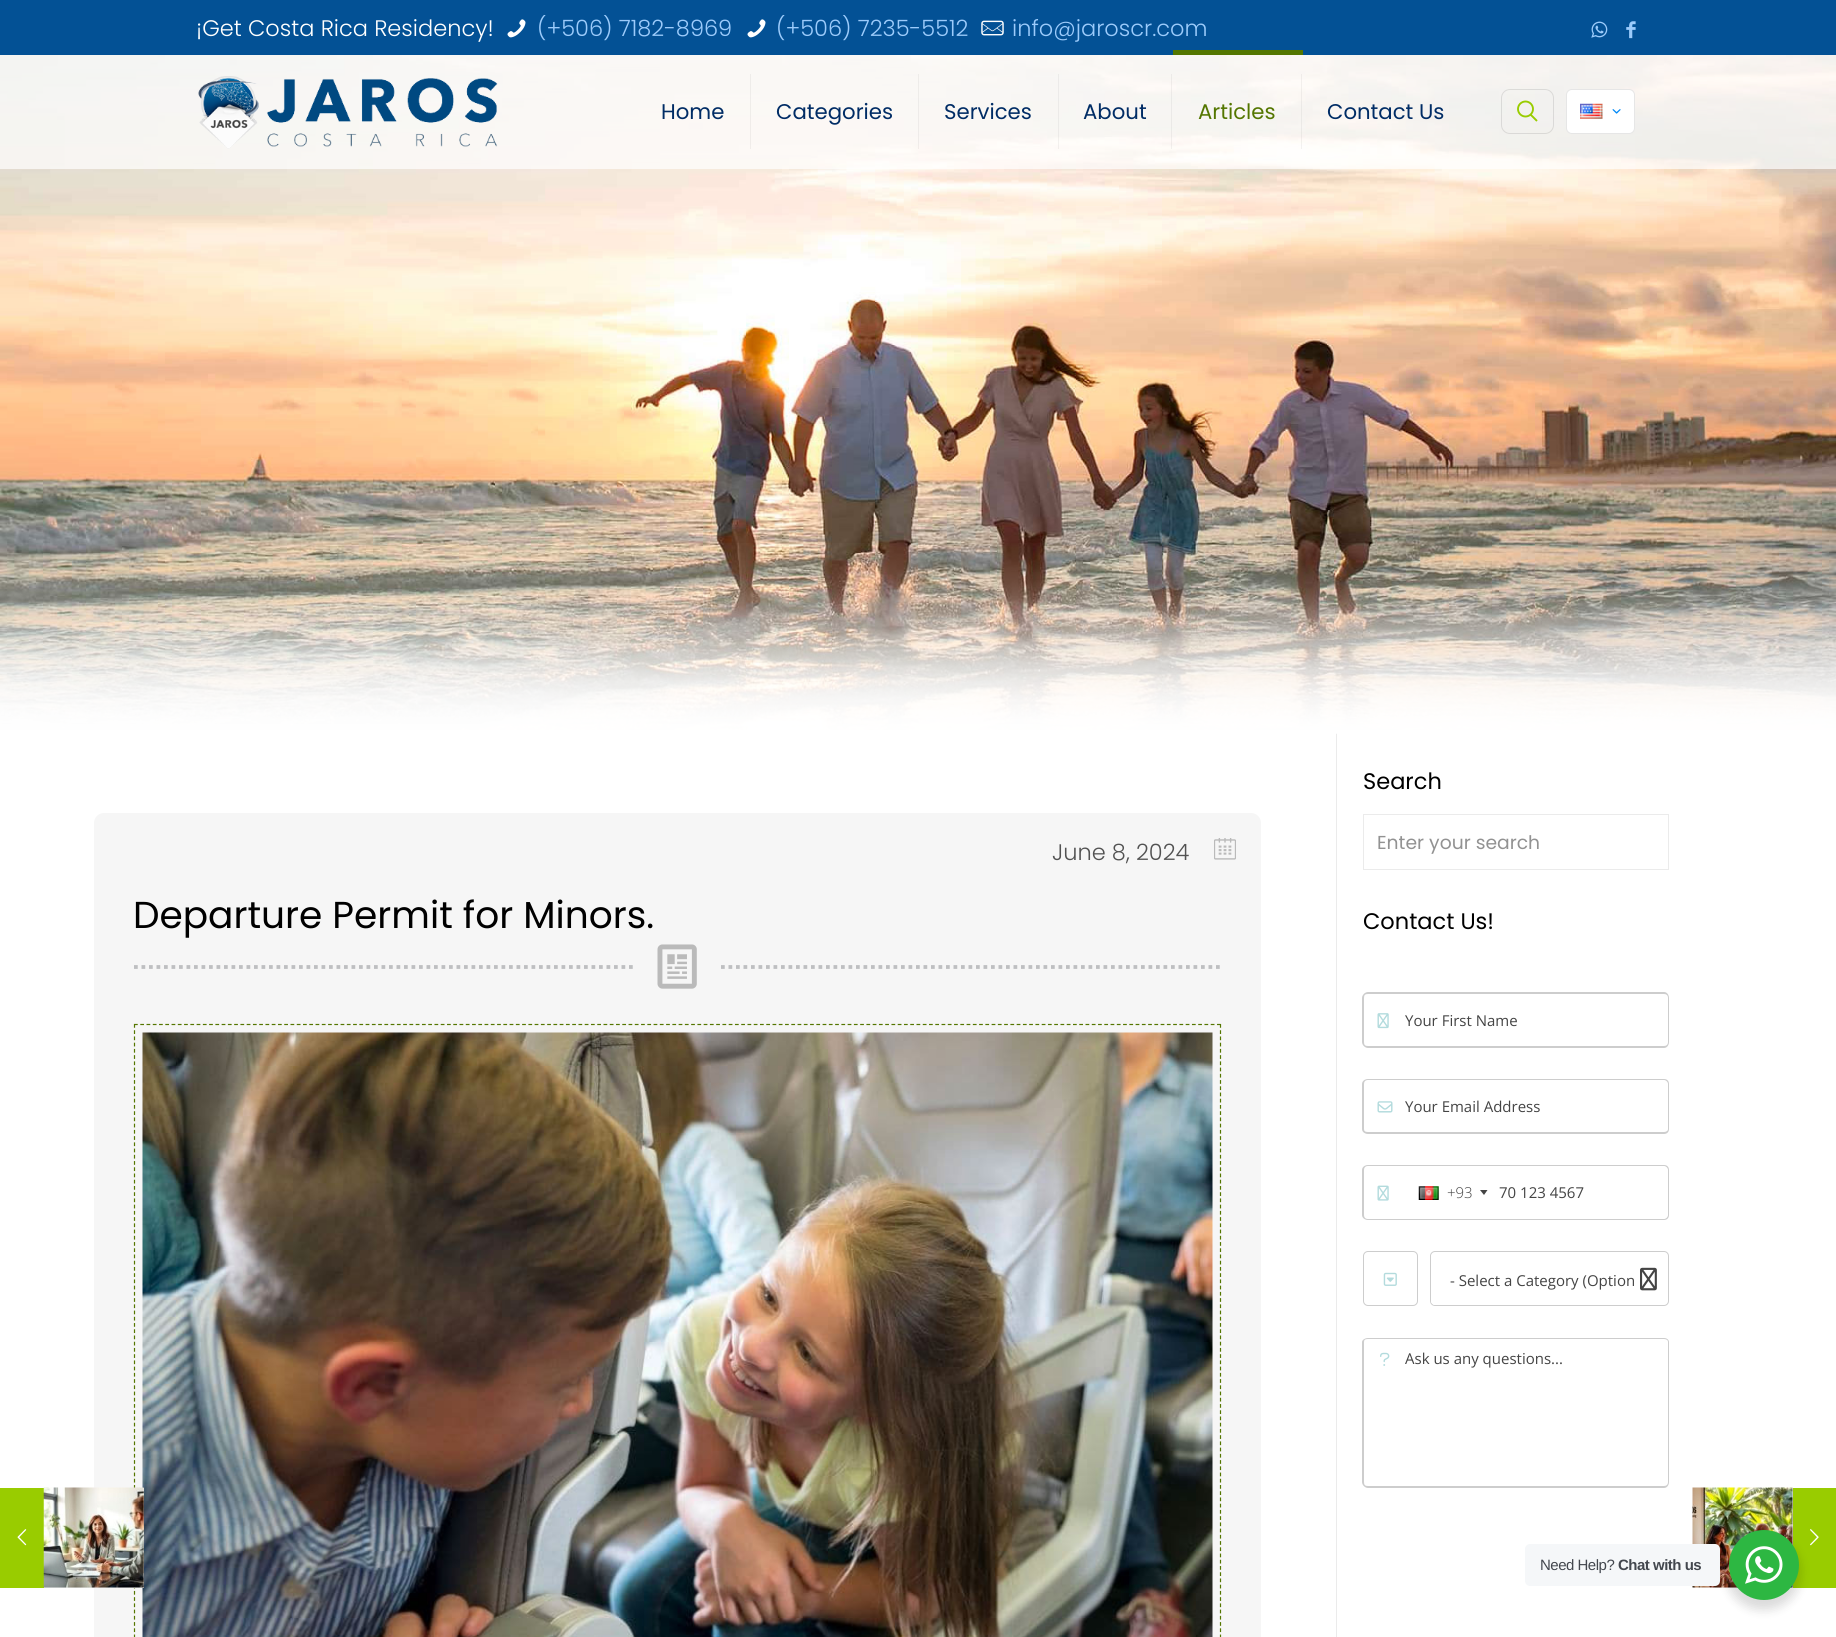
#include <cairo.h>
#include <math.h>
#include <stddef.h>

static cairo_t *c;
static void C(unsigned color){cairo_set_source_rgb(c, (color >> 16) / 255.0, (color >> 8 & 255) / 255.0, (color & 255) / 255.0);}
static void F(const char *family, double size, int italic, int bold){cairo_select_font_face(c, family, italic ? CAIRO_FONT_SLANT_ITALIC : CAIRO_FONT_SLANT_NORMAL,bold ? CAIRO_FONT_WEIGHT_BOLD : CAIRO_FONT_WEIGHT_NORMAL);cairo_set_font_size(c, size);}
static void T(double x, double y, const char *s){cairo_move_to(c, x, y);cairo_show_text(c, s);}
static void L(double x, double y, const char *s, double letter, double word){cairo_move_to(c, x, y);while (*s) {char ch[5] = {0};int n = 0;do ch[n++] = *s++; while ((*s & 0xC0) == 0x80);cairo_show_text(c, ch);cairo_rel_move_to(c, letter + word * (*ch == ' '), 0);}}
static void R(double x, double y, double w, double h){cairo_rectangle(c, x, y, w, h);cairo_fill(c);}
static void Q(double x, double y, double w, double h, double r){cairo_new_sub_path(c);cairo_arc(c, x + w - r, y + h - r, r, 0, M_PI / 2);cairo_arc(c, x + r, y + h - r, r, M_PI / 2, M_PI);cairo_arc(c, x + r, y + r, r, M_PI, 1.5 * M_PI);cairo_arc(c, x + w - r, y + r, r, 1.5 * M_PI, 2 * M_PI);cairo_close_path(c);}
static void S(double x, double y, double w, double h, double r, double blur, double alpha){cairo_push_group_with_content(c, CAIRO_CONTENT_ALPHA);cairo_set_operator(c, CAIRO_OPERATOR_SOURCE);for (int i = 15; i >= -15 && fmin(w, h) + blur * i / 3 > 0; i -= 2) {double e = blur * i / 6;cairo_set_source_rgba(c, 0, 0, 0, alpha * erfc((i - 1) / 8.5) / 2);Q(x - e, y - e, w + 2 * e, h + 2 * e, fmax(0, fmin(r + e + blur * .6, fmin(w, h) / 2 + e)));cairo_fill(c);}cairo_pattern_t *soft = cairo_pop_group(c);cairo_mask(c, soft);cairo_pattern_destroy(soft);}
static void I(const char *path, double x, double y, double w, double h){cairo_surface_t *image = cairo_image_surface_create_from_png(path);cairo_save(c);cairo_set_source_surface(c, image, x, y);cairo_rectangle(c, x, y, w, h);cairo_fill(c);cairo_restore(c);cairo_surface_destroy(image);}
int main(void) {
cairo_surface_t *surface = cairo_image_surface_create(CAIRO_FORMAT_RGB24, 1836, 1637);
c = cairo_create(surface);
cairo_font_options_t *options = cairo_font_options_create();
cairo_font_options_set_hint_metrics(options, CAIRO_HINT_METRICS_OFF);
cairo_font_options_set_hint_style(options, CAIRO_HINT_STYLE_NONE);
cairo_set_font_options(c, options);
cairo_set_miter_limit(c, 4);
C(0xffffff);
cairo_paint(c);
C(0x035195);
R(0,0,1836,55);
F("Poppins Light",22.5,0,0);
C(0xffffff);
T(196,36,"¡Get Costa Rica Residency!");
I("1.png",507,19,19,19);
C(0x9ccbfb);
T(537,36,"(+506) 7182-8969");
I("1.png",747,19,19,19);
T(776,36,"(+506) 7235-5512");
I("2.png",981,20,23,16);
T(1012,36,"info@jaroscr.com");
I("3.png",1591,21,17,17);
I("4.png",1626,21,10,18);
I("8.png",0,55,1836,675);
cairo_set_source_rgba(c,1,1,1,0.7);
R(0,55,1836,114);
I("5.png",198,76,300,73);
cairo_set_source_rgba(c,0,0,0,0.05);
R(750,74,1,75);
F("Poppins",21.25,0,0);
C(0x002c65);
T(661,119,"Home");
cairo_set_source_rgba(c,0,0,0,0.05);
R(918,74,1,75);
C(0x002c65);
T(776,119,"Categories");
cairo_set_source_rgba(c,0,0,0,0.05);
R(1058,74,1,75);
C(0x002c65);
T(944,119,"Services");
cairo_set_source_rgba(c,0,0,0,0.05);
R(1171,74,1,75);
C(0x002c65);
T(1083,119,"About");
C(0x547600);
R(1173,50,130,5);
cairo_set_source_rgba(c,0,0,0,0.05);
R(1301,74,1,75);
C(0x547600);
T(1198,119,"Articles");
C(0x002c65);
T(1327,119,"Contact Us");
Q(1501.5,89.5,52,44,8.5);
cairo_set_source_rgba(c,0,0,0,0.1);
cairo_set_line_width(c,1);
cairo_stroke(c);
cairo_arc(c,1525.5,109,7.5,0,2 * M_PI);
C(0x99cc00);
cairo_set_line_width(c,1.9);
cairo_stroke(c);
cairo_new_path(c);
cairo_move_to(c,1530.5,114.5);
cairo_line_to(c,1537,121);
cairo_stroke(c);
C(0xffffff);
Q(1566,89,69,45,6);
cairo_fill(c);
Q(1566.5,89.5,68,44,5.5);
cairo_set_source_rgba(c,0,0,0,0.1);
cairo_set_line_width(c,1);
cairo_stroke(c);
I("6.png",1580,103,23,16);
I("7.png",1612,109,9,5);
C(0xebebeb);
R(1336,730,1,907);
I("9.png",0,543,1836,191);
C(0xf6f6f6);
Q(94,813,1167,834,10);
cairo_fill(c);
F("Poppins Light",22.5,0,0);
C(0x525252);
T(1052,860,"June 8, 2024");
I("10.png",1214,838,22,22);
F("Poppins",37.5,0,0);
C(0x000000);
T(133,928,"Departure Permit for Minors.");
cairo_new_path(c);
cairo_move_to(c,134,967);
cairo_line_to(c,634,967);
C(0xbebfc1);
cairo_set_line_width(c,3.8);
cairo_set_dash(c,(double[]){3.75,3.75},2,0);
cairo_stroke(c);
I("11.png",657,944,40,45);
cairo_new_path(c);
cairo_move_to(c,721,967);
cairo_line_to(c,1221,967);
cairo_stroke(c);
cairo_new_path(c);
cairo_move_to(c,134,1024.5);
cairo_line_to(c,1221,1024.5);
C(0x547600);
cairo_set_line_width(c,1.2);
cairo_set_dash(c,(double[]){3.75,2.51},2,0);
cairo_stroke(c);
cairo_new_path(c);
cairo_move_to(c,134.5,1024);
cairo_line_to(c,134.5,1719);
cairo_set_dash(c,(double[]){3.75,2.48},2,0);
cairo_stroke(c);
I("12.png",142,1032,1071,605);
cairo_new_path(c);
cairo_move_to(c,1220.5,1024);
cairo_line_to(c,1220.5,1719);
cairo_stroke(c);
F("Poppins",22.5,0,0);
C(0x000000);
T(1363,789,"Search");
cairo_rectangle(c,1363.5,814.5,305,55);
C(0xebebeb);
cairo_set_line_width(c,1);
cairo_set_dash(c,NULL,0,0);
cairo_stroke(c);
F("Poppins",18.75,0,0);
C(0x929292);
T(1377,849,"Enter your search");
F("Poppins",22.5,0,0);
C(0x000000);
T(1363,929,"Contact Us!");
C(0xcdcdcd);
cairo_set_fill_rule(c,CAIRO_FILL_RULE_EVEN_ODD);
cairo_new_path(c);
cairo_move_to(c,1368,992);
cairo_line_to(c,1405,992);
cairo_line_to(c,1405,1048);
cairo_line_to(c,1368,1048);
cairo_curve_to(c,1365,1048,1362,1045,1362,1042);
cairo_line_to(c,1362,998);
cairo_curve_to(c,1362,995,1365,992,1368,992);
cairo_close_path(c);
cairo_move_to(c,1368,994);
cairo_line_to(c,1405,994);
cairo_line_to(c,1405,1046);
cairo_line_to(c,1368,1046);
cairo_curve_to(c,1365,1046,1364,1045,1364,1042);
cairo_line_to(c,1364,998);
cairo_curve_to(c,1364,995,1365,994,1368,994);
cairo_close_path(c);
cairo_fill(c);
I("13.png",1377,1013,12,16);
cairo_new_path(c);
cairo_move_to(c,1405,992);
cairo_line_to(c,1664,992);
cairo_curve_to(c,1667,992,1669,995,1669,998);
cairo_line_to(c,1669,1042);
cairo_curve_to(c,1669,1045,1667,1048,1664,1048);
cairo_line_to(c,1405,1048);
cairo_close_path(c);
cairo_move_to(c,1405,994);
cairo_line_to(c,1664,994);
cairo_curve_to(c,1666,994,1668,995,1668,998);
cairo_line_to(c,1668,1042);
cairo_curve_to(c,1668,1045,1666,1046,1664,1046);
cairo_line_to(c,1405,1046);
cairo_close_path(c);
cairo_fill(c);
F("Open Sans",15,0,0);
C(0x444444);
T(1405,1026,"Your First Name");
C(0xcdcdcd);
cairo_new_path(c);
cairo_move_to(c,1368,1079);
cairo_line_to(c,1405,1079);
cairo_line_to(c,1405,1134);
cairo_line_to(c,1368,1134);
cairo_curve_to(c,1365,1134,1362,1132,1362,1129);
cairo_line_to(c,1362,1084);
cairo_curve_to(c,1362,1081,1365,1079,1368,1079);
cairo_close_path(c);
cairo_move_to(c,1368,1080);
cairo_line_to(c,1405,1080);
cairo_line_to(c,1405,1132);
cairo_line_to(c,1368,1132);
cairo_curve_to(c,1365,1132,1364,1131,1364,1129);
cairo_line_to(c,1364,1084);
cairo_curve_to(c,1364,1082,1365,1080,1368,1080);
cairo_close_path(c);
cairo_fill(c);
I("14.png",1377,1101,16,12);
cairo_new_path(c);
cairo_move_to(c,1405,1079);
cairo_line_to(c,1664,1079);
cairo_curve_to(c,1667,1079,1669,1081,1669,1084);
cairo_line_to(c,1669,1129);
cairo_curve_to(c,1669,1132,1667,1134,1664,1134);
cairo_line_to(c,1405,1134);
cairo_close_path(c);
cairo_move_to(c,1405,1080);
cairo_line_to(c,1664,1080);
cairo_curve_to(c,1666,1080,1668,1082,1668,1084);
cairo_line_to(c,1668,1129);
cairo_curve_to(c,1668,1131,1666,1132,1664,1132);
cairo_line_to(c,1405,1132);
cairo_close_path(c);
cairo_fill(c);
C(0x444444);
T(1405,1112,"Your Email Address");
C(0xcdcdcd);
cairo_new_path(c);
cairo_move_to(c,1368,1165);
cairo_line_to(c,1405,1165);
cairo_line_to(c,1405,1220);
cairo_line_to(c,1368,1220);
cairo_curve_to(c,1365,1220,1362,1218,1362,1215);
cairo_line_to(c,1362,1170);
cairo_curve_to(c,1362,1167,1365,1165,1368,1165);
cairo_close_path(c);
cairo_move_to(c,1368,1166);
cairo_line_to(c,1405,1166);
cairo_line_to(c,1405,1219);
cairo_line_to(c,1368,1219);
cairo_curve_to(c,1365,1219,1364,1217,1364,1215);
cairo_line_to(c,1364,1170);
cairo_curve_to(c,1364,1168,1365,1166,1368,1166);
cairo_close_path(c);
cairo_fill(c);
I("15.png",1377,1185,12,16);
cairo_new_path(c);
cairo_move_to(c,1405,1165);
cairo_line_to(c,1664,1165);
cairo_curve_to(c,1667,1165,1669,1167,1669,1170);
cairo_line_to(c,1669,1215);
cairo_curve_to(c,1669,1218,1667,1220,1664,1220);
cairo_line_to(c,1405,1220);
cairo_close_path(c);
cairo_move_to(c,1405,1166);
cairo_line_to(c,1664,1166);
cairo_curve_to(c,1666,1166,1668,1168,1668,1170);
cairo_line_to(c,1668,1215);
cairo_curve_to(c,1668,1217,1666,1219,1664,1219);
cairo_line_to(c,1405,1219);
cairo_close_path(c);
cairo_fill(c);
I("16.png",1418,1186,21,14);
F("Open Sans Light",15,0,0);
C(0x444444);
T(1447,1198,"+93");
cairo_set_fill_rule(c,CAIRO_FILL_RULE_WINDING);
cairo_new_path(c);
cairo_move_to(c,1480,1190);
cairo_line_to(c,1487.5,1190);
cairo_line_to(c,1484,1195);
cairo_close_path(c);
cairo_fill(c);
F("Open Sans",15,0,0);
T(1499,1198,"70 123 4567");
Q(1363.5,1251.5,54,54,4.5);
C(0xcdcdcd);
cairo_stroke(c);
I("17.png",1383,1272,14,14);
Q(1430.5,1251.5,238,54,4.5);
cairo_stroke(c);
C(0xffffff);
cairo_new_path(c);
cairo_move_to(c,1435,1253);
cairo_line_to(c,1635,1253);
cairo_line_to(c,1635,1305);
cairo_line_to(c,1435,1305);
cairo_curve_to(c,1433,1305,1431,1303,1431,1301);
cairo_line_to(c,1431,1257);
cairo_curve_to(c,1431,1255,1433,1253,1435,1253);
cairo_close_path(c);
cairo_fill(c);
C(0x444444);
T(1450,1286,"- Select a Category (Option");
I("18.png",1640,1267,17,24);
C(0xcdcdcd);
cairo_set_fill_rule(c,CAIRO_FILL_RULE_EVEN_ODD);
cairo_new_path(c);
cairo_move_to(c,1368,1338);
cairo_line_to(c,1405,1338);
cairo_line_to(c,1405,1488);
cairo_line_to(c,1368,1488);
cairo_curve_to(c,1365,1488,1362,1485,1362,1482);
cairo_line_to(c,1362,1342);
cairo_curve_to(c,1362,1340,1365,1338,1368,1338);
cairo_close_path(c);
cairo_move_to(c,1368,1339);
cairo_line_to(c,1405,1339);
cairo_line_to(c,1405,1486);
cairo_line_to(c,1368,1486);
cairo_curve_to(c,1365,1486,1364,1485,1364,1482);
cairo_line_to(c,1364,1342);
cairo_curve_to(c,1364,1340,1365,1339,1368,1339);
cairo_close_path(c);
cairo_fill(c);
I("19.png",1380,1352,10,14);
cairo_new_path(c);
cairo_move_to(c,1405,1338);
cairo_line_to(c,1664,1338);
cairo_curve_to(c,1667,1338,1669,1340,1669,1342);
cairo_line_to(c,1669,1482);
cairo_curve_to(c,1669,1485,1667,1488,1664,1488);
cairo_line_to(c,1405,1488);
cairo_close_path(c);
cairo_move_to(c,1405,1339);
cairo_line_to(c,1664,1339);
cairo_curve_to(c,1666,1339,1668,1340,1668,1342);
cairo_line_to(c,1668,1482);
cairo_curve_to(c,1668,1485,1666,1486,1664,1486);
cairo_line_to(c,1405,1486);
cairo_close_path(c);
cairo_fill(c);
C(0x444444);
T(1405,1364,"Ask us any questions...");
C(0x99cc00);
R(0,1488,44,100);
I("20.png",17,1529,10,17);
C(0xeeeeee);
R(44,1488,100,100);
I("21.png",43,1487,101,101);
R(1693,1488,100,100);
I("23.png",1692,1487,101,101);
C(0x99cc00);
R(1793,1488,43,100);
I("24.png",1810,1529,9,17);
C(0x000000);
S(1726,1535,75,75,37.5,5,.14);
C(0xf5f7f9);
Q(1525,1544,195,42,5);
cairo_fill(c);
F("Liberation Sans",15,0,0);
C(0x43474e);
L(1540,1570,"Need Help?",-.5,0);
F("Liberation Sans",15,0,1);
L(1618,1570,"Chat with us",-.5,0);
C(0x2db742);
cairo_new_path(c);
cairo_arc(c,1764,1565,35,0,2 * M_PI);
cairo_fill(c);
I("22.png",1745,1546,38,38);
cairo_surface_write_to_png(surface, "o.png");
cairo_font_options_destroy(options);
cairo_destroy(c);
cairo_surface_destroy(surface);
return 0;
}
